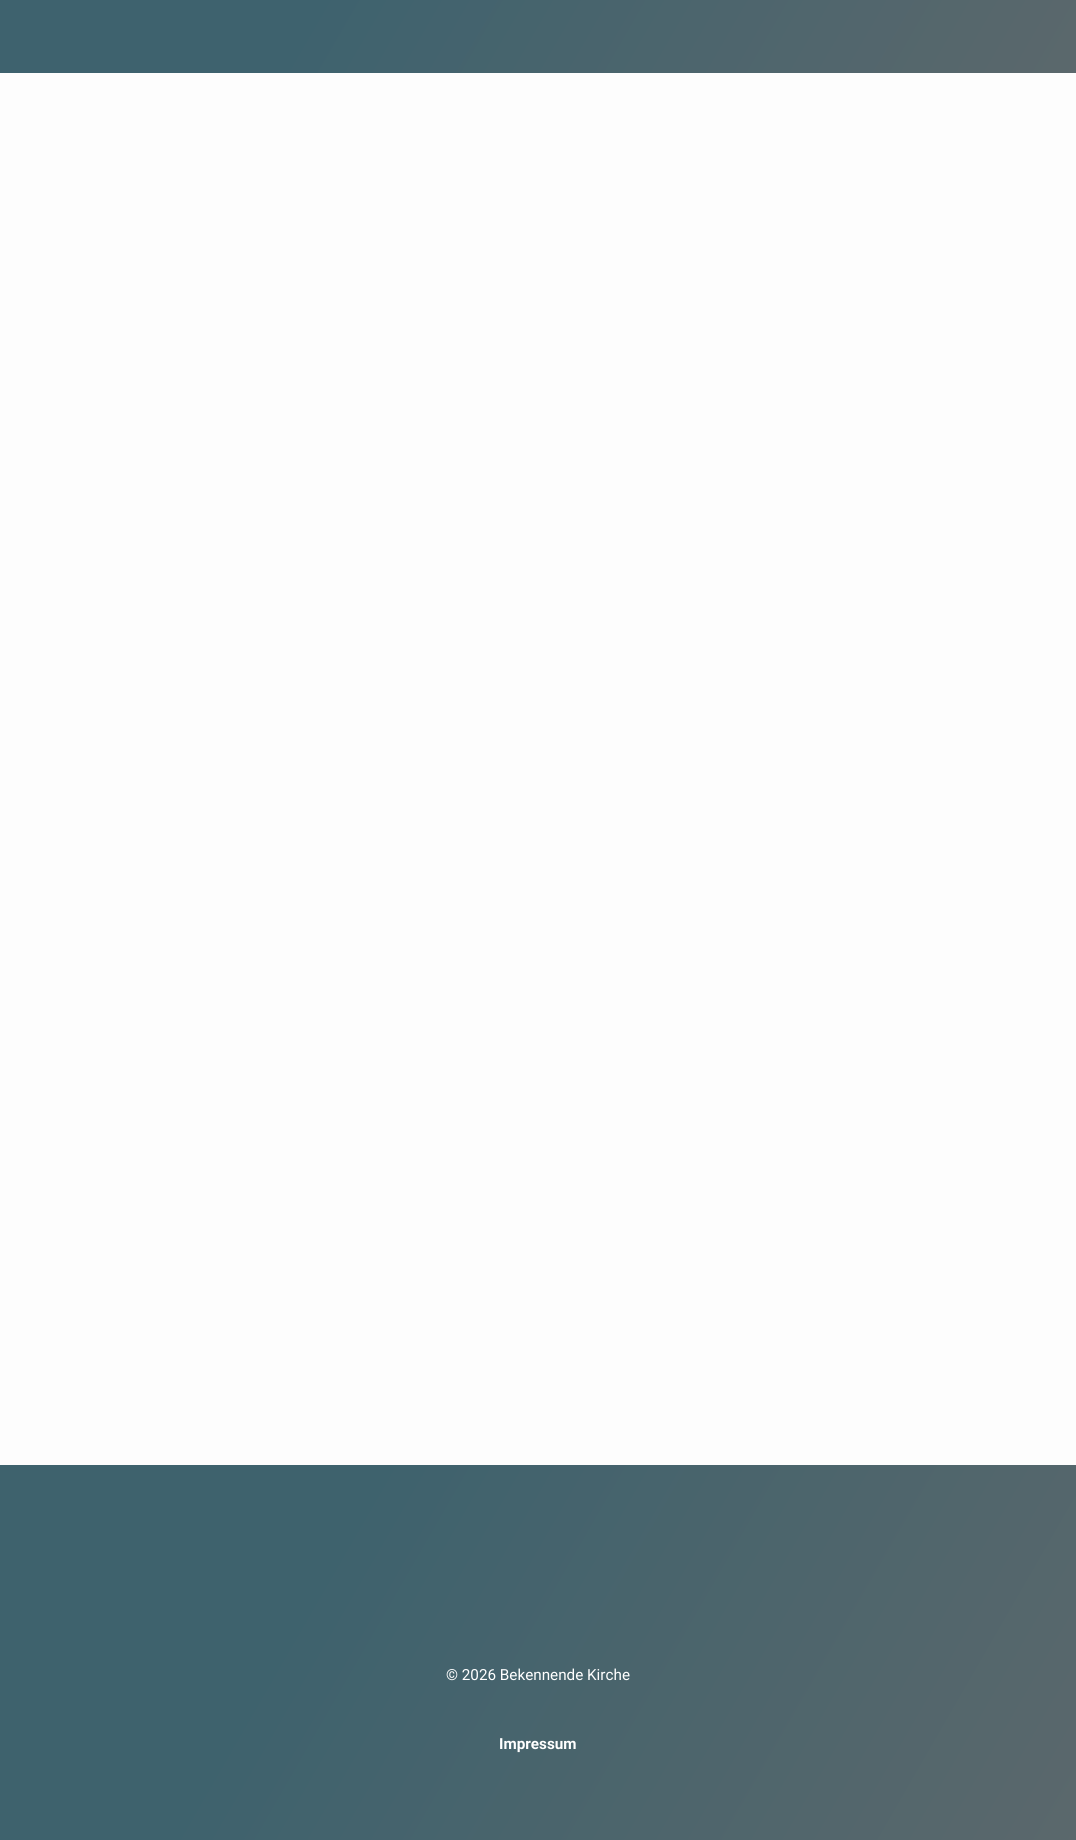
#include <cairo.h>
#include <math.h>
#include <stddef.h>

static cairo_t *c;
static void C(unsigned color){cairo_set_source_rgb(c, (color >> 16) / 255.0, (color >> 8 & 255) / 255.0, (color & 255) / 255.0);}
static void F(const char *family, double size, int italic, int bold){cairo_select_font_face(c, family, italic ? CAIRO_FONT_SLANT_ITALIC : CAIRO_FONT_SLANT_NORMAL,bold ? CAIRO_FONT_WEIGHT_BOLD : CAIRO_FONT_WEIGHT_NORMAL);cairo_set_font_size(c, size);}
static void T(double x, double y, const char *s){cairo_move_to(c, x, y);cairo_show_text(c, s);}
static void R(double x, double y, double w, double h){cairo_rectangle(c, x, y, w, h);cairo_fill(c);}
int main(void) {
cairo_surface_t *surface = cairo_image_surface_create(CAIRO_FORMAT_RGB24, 1076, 1840);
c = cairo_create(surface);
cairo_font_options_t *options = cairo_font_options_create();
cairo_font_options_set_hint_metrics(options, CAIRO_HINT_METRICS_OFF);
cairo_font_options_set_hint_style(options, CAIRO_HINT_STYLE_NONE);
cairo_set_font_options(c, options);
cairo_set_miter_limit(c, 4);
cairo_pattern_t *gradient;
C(0xfdfdfd);
cairo_paint(c);
gradient = cairo_pattern_create_linear(119,-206,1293,472);
cairo_pattern_add_color_stop_rgba(gradient,.21,0.22,0.365,0.412,.97);
cairo_pattern_add_color_stop_rgba(gradient,1,0.4,0.4,0.4,.97);
cairo_set_source(c,gradient);
cairo_pattern_destroy(gradient);
R(0,0,1076,73);
gradient = cairo_pattern_create_linear(53,1373,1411,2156);
cairo_pattern_add_color_stop_rgba(gradient,.21,0.243,0.384,0.427,1);
cairo_pattern_add_color_stop_rgba(gradient,1,0.42,0.42,0.42,1);
cairo_set_source(c,gradient);
cairo_pattern_destroy(gradient);
R(0,1465,1076,375);
F("Roboto",15.25,0,0);
C(0xffffff);
T(446,1680,"© 2026 Bekennende Kirche");
F("Roboto",15.25,0,1);
T(499,1749,"Impressum");
cairo_surface_write_to_png(surface, "o.png");
cairo_font_options_destroy(options);
cairo_destroy(c);
cairo_surface_destroy(surface);
return 0;
}
